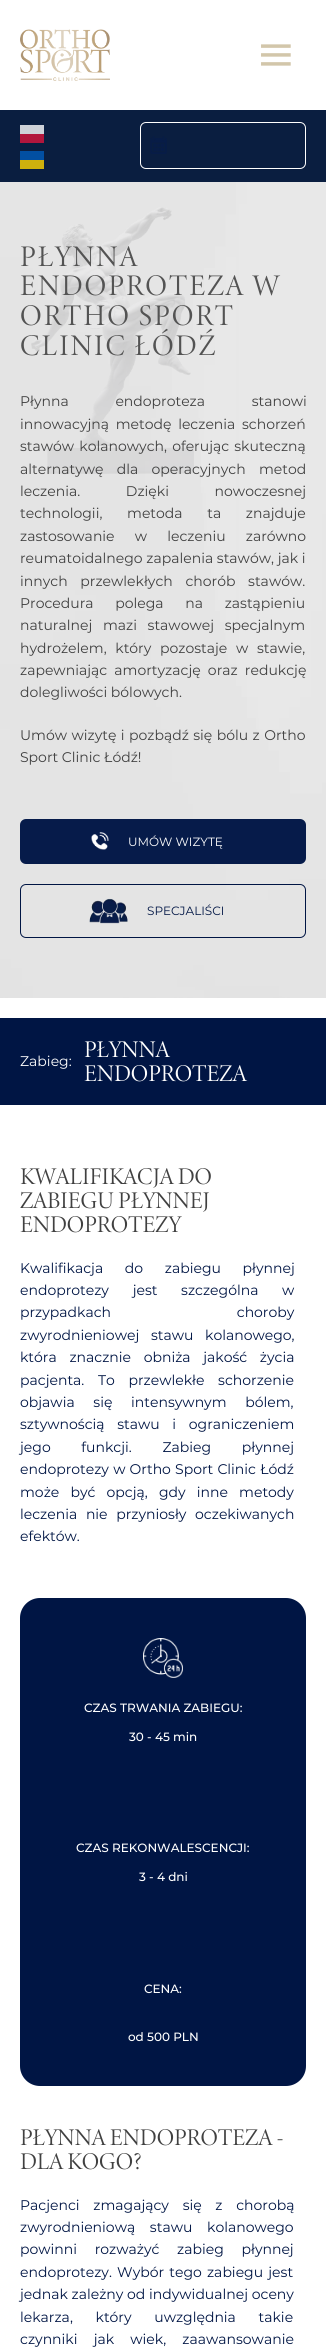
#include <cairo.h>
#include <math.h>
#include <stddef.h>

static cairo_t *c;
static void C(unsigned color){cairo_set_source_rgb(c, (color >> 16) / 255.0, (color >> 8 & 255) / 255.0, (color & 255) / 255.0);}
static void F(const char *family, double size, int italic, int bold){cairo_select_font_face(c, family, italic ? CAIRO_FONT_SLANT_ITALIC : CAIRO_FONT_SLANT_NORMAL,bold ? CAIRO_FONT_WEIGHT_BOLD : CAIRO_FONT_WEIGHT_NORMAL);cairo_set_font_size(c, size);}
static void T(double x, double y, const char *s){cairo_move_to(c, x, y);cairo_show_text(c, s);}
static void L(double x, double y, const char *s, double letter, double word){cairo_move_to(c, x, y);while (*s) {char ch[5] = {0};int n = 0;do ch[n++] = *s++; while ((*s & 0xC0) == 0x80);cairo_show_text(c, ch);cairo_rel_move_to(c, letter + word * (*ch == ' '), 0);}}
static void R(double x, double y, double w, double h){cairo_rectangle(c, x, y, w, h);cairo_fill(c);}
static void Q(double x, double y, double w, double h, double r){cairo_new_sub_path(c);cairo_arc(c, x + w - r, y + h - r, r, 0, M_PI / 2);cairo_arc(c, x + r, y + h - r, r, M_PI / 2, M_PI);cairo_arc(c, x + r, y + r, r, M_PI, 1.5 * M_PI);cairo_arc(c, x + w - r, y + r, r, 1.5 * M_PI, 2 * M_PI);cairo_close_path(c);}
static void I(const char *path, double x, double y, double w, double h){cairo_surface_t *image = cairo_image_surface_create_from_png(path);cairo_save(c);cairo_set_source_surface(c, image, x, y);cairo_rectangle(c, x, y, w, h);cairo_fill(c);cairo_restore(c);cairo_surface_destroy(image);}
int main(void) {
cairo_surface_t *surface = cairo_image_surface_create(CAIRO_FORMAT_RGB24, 326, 2348);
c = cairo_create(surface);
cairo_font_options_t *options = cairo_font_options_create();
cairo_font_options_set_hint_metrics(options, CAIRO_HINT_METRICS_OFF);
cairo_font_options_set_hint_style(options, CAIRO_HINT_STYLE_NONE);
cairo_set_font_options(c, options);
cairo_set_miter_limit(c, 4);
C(0xffffff);
cairo_paint(c);
I("1.png",20,29,90,52);
I("2.png",261,44,30,22);
C(0x0a1e40);
R(0,110,326,72);
C(0xced2d9);
R(20,125,24,9);
C(0xb2163d);
R(20,134,24,9);
C(0x024fa2);
R(20,151,24,9);
C(0xceb00d);
R(20,160,24,9);
Q(140.5,122.5,165,46,5.5);
C(0xffffff);
cairo_set_line_width(c,1);
cairo_stroke(c);
I("3.png",150,136,17,18);
I("4.png",0,182,326,816);
I("5.png",31,207,163,267);
F("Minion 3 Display",30,0,0);
C(0x535353);
L(20,266,"PŁYNNA",2,0);
L(20,295,"ENDOPROTEZA W",2,0);
L(20,325,"ORTHO SPORT",2,0);
L(20,355,"CLINIC ŁÓDŹ",2,0);
F("Montserrat",14,0,0);
C(0x404040);
L(20,406,"Płynna endoproteza stanowi",0,43);
L(20,429,"innowacyjną metodę leczenia schorzeń",0,3);
L(20,451,"stawów kolanowych, oferując skuteczną",0,1.5);
L(20,474,"alternatywę dla operacyjnych metod",0,9.5);
L(20,496,"leczenia. Dzięki nowoczesnej",0,42);
L(20,518,"technologii, metoda ta znajduje",0,21);
L(20,541,"zastosowanie w leczeniu zarówno",0,16.5);
T(20,563,"reumatoidalnego zapalenia stawów, jak i");
L(20,586,"innych przewlekłych chorób stawów.",0,9);
L(20,608,"Procedura polega na zastąpieniu",0,18);
L(20,630,"naturalnej mazi stawowej specjalnym",0,7);
L(20,653,"hydrożelem, który pozostaje w stawie,",0,5);
L(20,675,"zapewniając amortyzację oraz redukcję",0,3.5);
T(20,697,"dolegliwości bólowych.");
L(20,740,"Umów wizytę i pozbądź się bólu z Ortho",0,.75);
T(20,762,"Sport Clinic Łódź!");
C(0x061b4a);
Q(20,819,286,45,6);
cairo_fill(c);
I("6.png",91,832,18,18);
F("Montserrat",12,0,0);
C(0xffffff);
T(128,846,"UMÓW WIZYTĘ");
Q(20.5,884.5,285,53,5.5);
C(0x001544);
cairo_stroke(c);
I("7.png",89,898,39,26);
T(147,915,"SPECJALIŚCI");
R(0,1018,326,87);
F("Montserrat",14,0,0);
C(0xffffff);
T(20,1066,"Zabieg:");
F("Minion 3 Display",24,0,0);
T(84,1057,"PŁYNNA");
T(84,1081,"ENDOPROTEZA");
C(0x404040);
T(20,1184,"KWALIFIKACJA DO");
T(20,1208,"ZABIEGU PŁYNNEJ");
T(20,1232,"ENDOPROTEZY");
F("Montserrat",14,0,0);
C(0x001544);
L(20,1273,"Kwalifikacja do zabiegu płynnej",0,18);
L(20,1295,"endoprotezy jest szczególna w",0,20);
L(20,1317,"przypadkach choroby",0,122);
L(20,1340,"zwyrodnieniowej stawu kolanowego,",0,8);
L(20,1362,"która znacznie obniża jakość życia",0,9);
L(20,1385,"pacjenta. To przewlekłe schorzenie",0,10);
L(20,1407,"objawia się intensywnym bólem,",0,15);
L(20,1429,"sztywnością stawu i ograniczeniem",0,9);
L(20,1452,"jego funkcji. Zabieg płynnej",0,27);
L(20,1474,"endoprotezy w Ortho Sport Clinic Łódź",0,.5);
L(20,1497,"może być opcją, gdy inne metody",0,7.5);
L(20,1519,"leczenia nie przyniosły oczekiwanych",0,5);
T(20,1541,"efektów.");
Q(20,1598,286,488,20);
cairo_fill(c);
I("8.png",143,1638,40,40);
F("Montserrat Medium",12,0,0);
C(0xffffff);
T(84,1712,"CZAS TRWANIA ZABIEGU:");
T(129,1741,"30 - 45 min");
T(76,1852,"CZAS REKONWALESCENCJI:");
T(139,1881,"3 - 4 dni");
T(144,1993,"CENA:");
T(128,2041,"od 500 PLN");
F("Minion 3 Display",24,0,0);
C(0x404040);
T(20,2145,"PŁYNNA ENDOPROTEZA -");
T(20,2169,"DLA KOGO?");
F("Montserrat",14,0,0);
C(0x001544);
L(20,2210,"Pacjenci zmagający się z chorobą",0,10);
L(20,2232,"zwyrodnieniową stawu kolanowego",0,11);
L(20,2254,"powinni rozważyć zabieg płynnej",0,14);
L(20,2277,"endoprotezy. Wybór tego zabiegu jest",0,1.5);
T(20,2299,"jednak zależny od indywidualnej oceny");
L(20,2322,"lekarza, który uwzględnia takie",0,19);
L(20,2344,"czynniki jak wiek, zaawansowanie",0,12.5);
cairo_surface_write_to_png(surface, "o.png");
cairo_font_options_destroy(options);
cairo_destroy(c);
cairo_surface_destroy(surface);
return 0;
}
